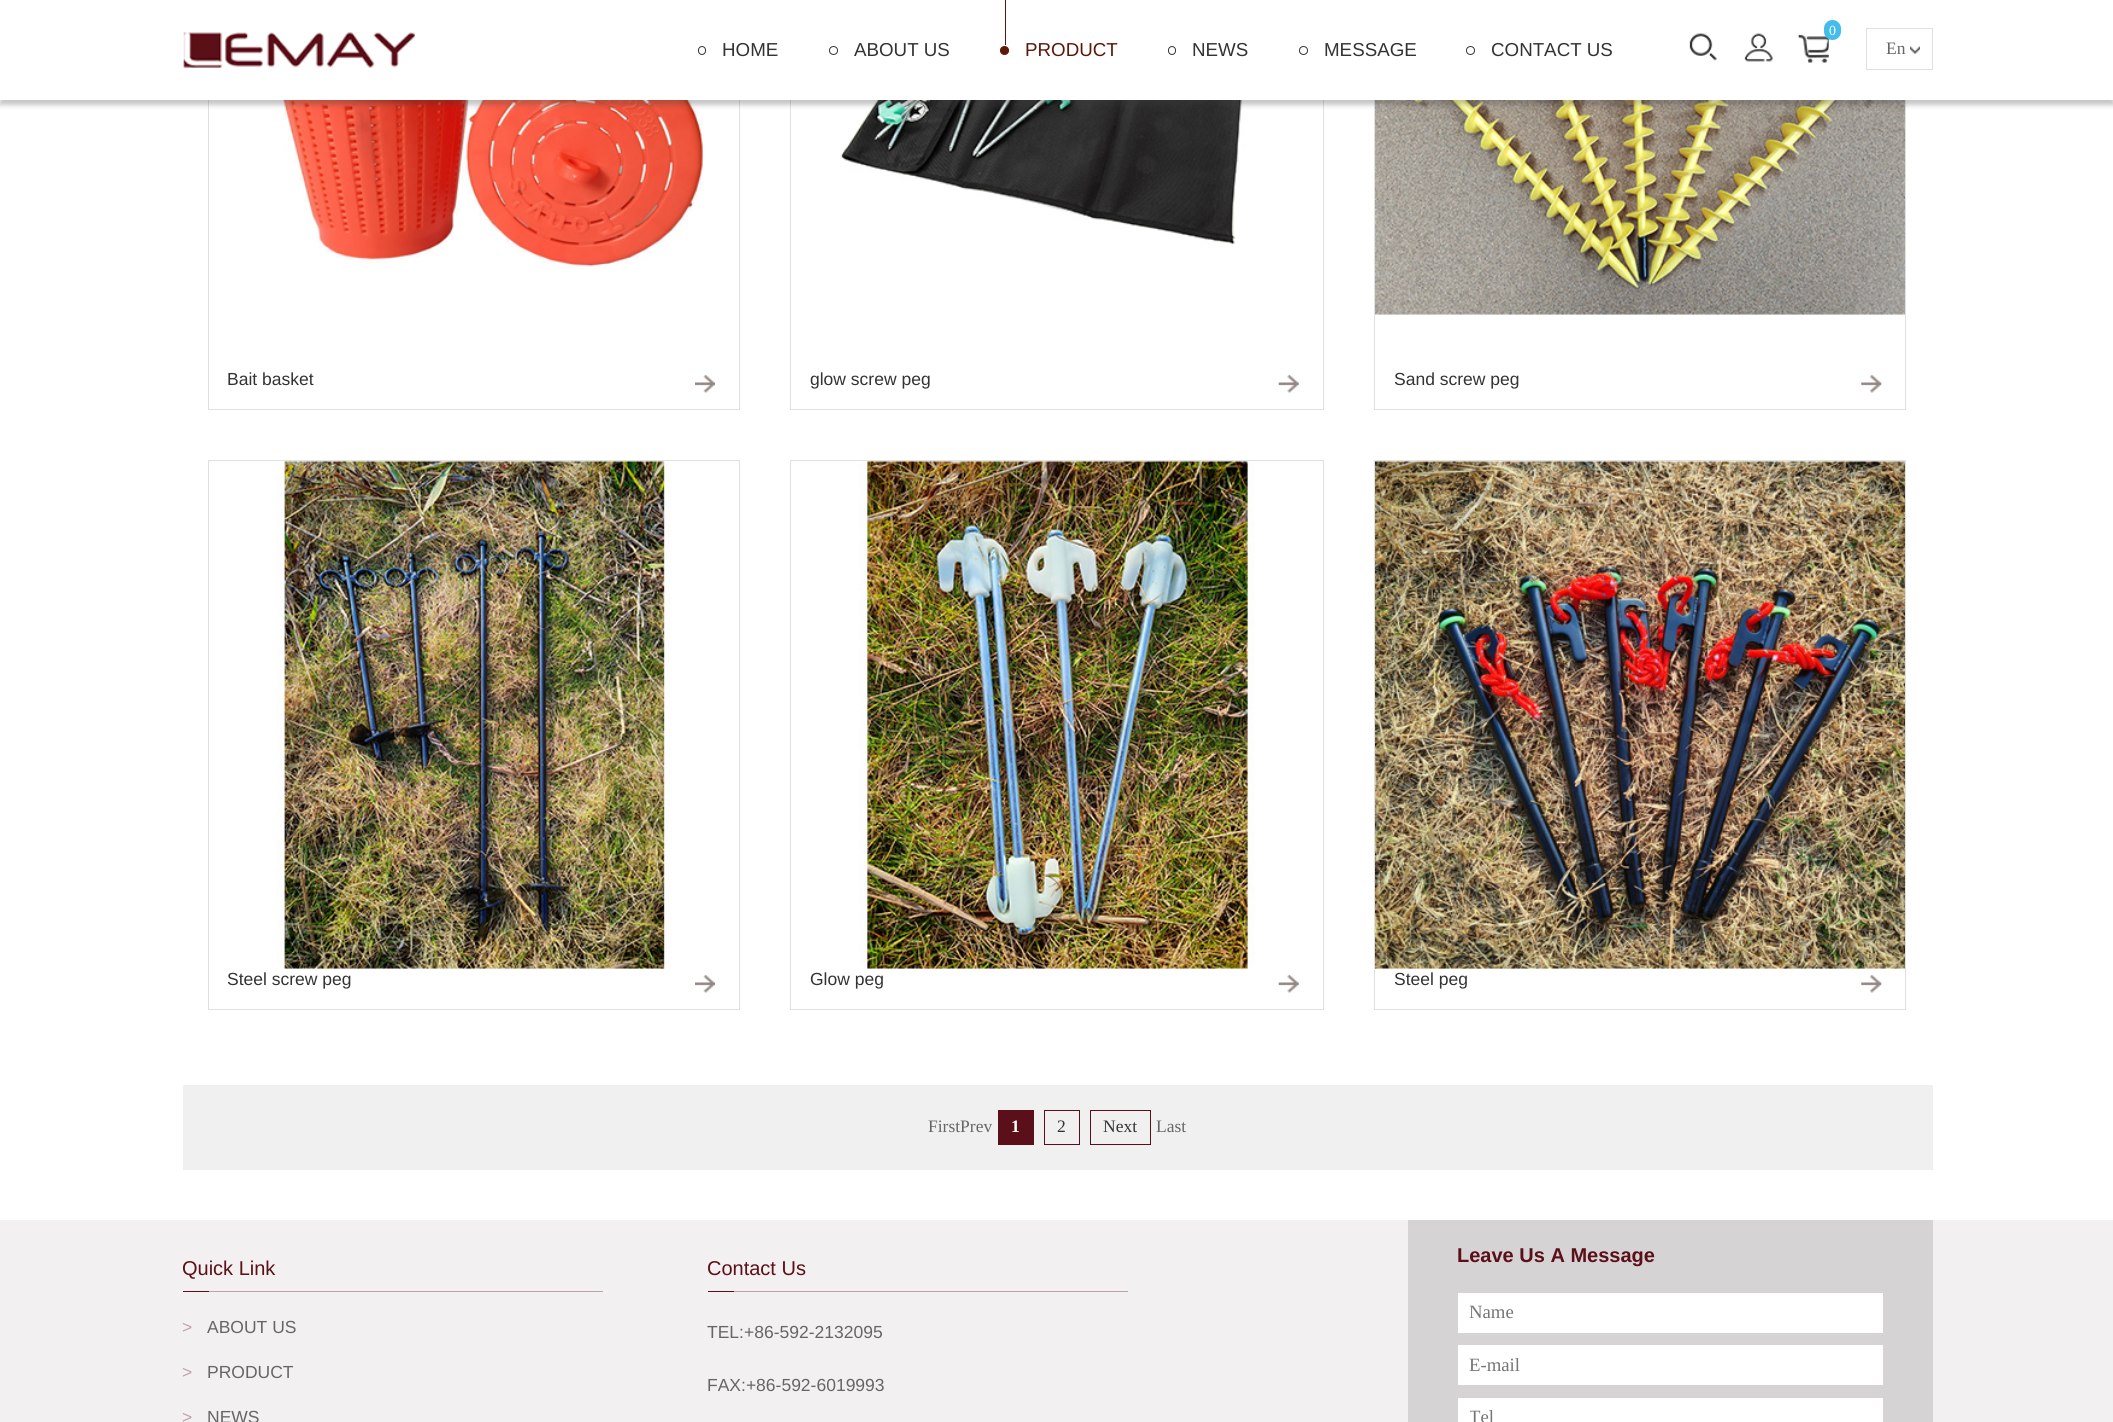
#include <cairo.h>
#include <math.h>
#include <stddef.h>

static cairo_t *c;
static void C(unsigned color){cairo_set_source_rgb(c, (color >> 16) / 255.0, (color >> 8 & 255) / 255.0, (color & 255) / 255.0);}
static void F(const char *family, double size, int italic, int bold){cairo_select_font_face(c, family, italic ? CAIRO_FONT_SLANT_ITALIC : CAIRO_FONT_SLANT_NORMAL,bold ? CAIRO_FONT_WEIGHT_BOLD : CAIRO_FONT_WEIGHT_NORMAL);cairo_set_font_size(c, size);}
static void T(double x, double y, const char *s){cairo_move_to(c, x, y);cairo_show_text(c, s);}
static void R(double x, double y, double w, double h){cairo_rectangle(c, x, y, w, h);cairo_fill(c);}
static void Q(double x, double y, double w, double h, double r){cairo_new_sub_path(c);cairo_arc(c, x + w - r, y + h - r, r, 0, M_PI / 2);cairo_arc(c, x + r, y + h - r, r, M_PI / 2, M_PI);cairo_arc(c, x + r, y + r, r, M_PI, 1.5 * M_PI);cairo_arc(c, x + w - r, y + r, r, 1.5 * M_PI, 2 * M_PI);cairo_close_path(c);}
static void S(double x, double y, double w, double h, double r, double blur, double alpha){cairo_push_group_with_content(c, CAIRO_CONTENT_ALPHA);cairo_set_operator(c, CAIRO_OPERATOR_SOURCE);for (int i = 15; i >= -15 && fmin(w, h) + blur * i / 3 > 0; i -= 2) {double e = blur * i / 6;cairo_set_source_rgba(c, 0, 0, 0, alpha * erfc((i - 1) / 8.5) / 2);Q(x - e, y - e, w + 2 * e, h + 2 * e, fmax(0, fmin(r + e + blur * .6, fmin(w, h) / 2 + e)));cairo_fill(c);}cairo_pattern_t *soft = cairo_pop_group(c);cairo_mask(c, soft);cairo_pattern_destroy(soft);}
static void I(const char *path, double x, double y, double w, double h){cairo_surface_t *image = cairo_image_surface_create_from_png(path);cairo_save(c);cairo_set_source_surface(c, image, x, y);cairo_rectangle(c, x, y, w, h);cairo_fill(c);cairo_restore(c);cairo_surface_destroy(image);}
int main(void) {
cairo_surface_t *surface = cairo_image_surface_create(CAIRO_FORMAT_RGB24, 2113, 1422);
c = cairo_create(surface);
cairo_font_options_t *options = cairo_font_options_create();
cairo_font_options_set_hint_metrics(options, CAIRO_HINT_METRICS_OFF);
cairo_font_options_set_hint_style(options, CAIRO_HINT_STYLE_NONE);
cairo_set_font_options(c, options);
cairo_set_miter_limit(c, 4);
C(0xffffff);
cairo_paint(c);
cairo_rectangle(c,208.5,-.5,531,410);
C(0xe0e0e0);
cairo_set_line_width(c,1);
cairo_stroke(c);
I("6.png",267,100,438,169);
cairo_rectangle(c,790.5,-.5,533,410);
cairo_stroke(c);
I("8.png",805,100,442,184);
cairo_rectangle(c,1374.5,-.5,531,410);
cairo_stroke(c);
I("10.png",1375,100,530,216);
C(0x3d3d3d);
S(0,5,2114,100,0,2.5,.3);
C(0xffffff);
R(0,0,2113,100);
I("1.png",1798,34,31,29);
C(0x42bdec);
Q(1824,20,17,20,8.5);
cairo_fill(c);
F("Liberation Serif",14,0,0);
C(0xffffff);
T(1829,35,"0");
I("2.png",1689,33,28,28);
I("3.png",1744,33,29,29);
I("4.png",183,32,232,36);
Q(698.5,46.5,7,8,3.5);
C(0x333333);
cairo_stroke(c);
F("Liberation Sans",18.75,0,0);
T(722,56,"HOME");
cairo_new_path(c);
cairo_arc(c,833.5,50.5,4,0,2 * M_PI);
cairo_stroke(c);
T(854,56,"ABOUT US");
C(0x5d1709);
R(1005,0,1,45);
cairo_new_path(c);
cairo_arc(c,1004.5,50.5,4,0,2 * M_PI);
cairo_fill_preserve(c);
cairo_stroke(c);
T(1025,56,"PRODUCT");
Q(1168.5,46.5,7,8,3.5);
C(0x333333);
cairo_stroke(c);
T(1192,56,"NEWS");
cairo_new_path(c);
cairo_arc(c,1303.5,50.5,4,0,2 * M_PI);
cairo_stroke(c);
T(1324,56,"MESSAGE");
cairo_new_path(c);
cairo_arc(c,1470.5,50.5,4,0,2 * M_PI);
cairo_stroke(c);
T(1491,56,"CONTACT US");
I("5.png",1910,46,10,8);
cairo_rectangle(c,1866.5,28.5,66,41);
C(0xe0e0e0);
cairo_stroke(c);
F("Liberation Serif",17.5,0,0);
C(0x666666);
T(1886,54,"En");
F("Liberation Sans",17.5,0,0);
C(0x333333);
T(227,385,"Bait basket");
I("7.png",695,375,20,18);
T(810,385,"glow screw peg");
I("9.png",1278,375,21,18);
T(1394,385,"Sand screw peg");
I("11.png",1861,375,21,18);
cairo_rectangle(c,208.5,460.5,531,549);
C(0xe0e0e0);
cairo_stroke(c);
I("12.png",276,461,396,508);
C(0x333333);
T(227,985,"Steel screw peg");
I("13.png",695,975,20,18);
cairo_rectangle(c,790.5,460.5,533,549);
C(0xe0e0e0);
cairo_stroke(c);
I("14.png",859,461,396,508);
C(0x333333);
T(810,985,"Glow peg");
I("15.png",1278,975,21,18);
cairo_rectangle(c,1374.5,460.5,531,549);
C(0xe0e0e0);
cairo_stroke(c);
I("16.png",1375,461,530,508);
C(0x333333);
T(1394,985,"Steel peg");
I("17.png",1861,975,21,18);
C(0xf0f0f0);
R(183,1085,1750,85);
F("Liberation Serif",17.5,0,0);
C(0x666666);
T(928,1132,"FirstPrev");
C(0x5b0f18);
R(998,1110,36,35);
F("Liberation Serif",17.5,0,1);
C(0xffffff);
T(1011,1132,"1");
cairo_rectangle(c,1044.5,1110.5,35,34);
C(0x5b0f18);
cairo_stroke(c);
F("Liberation Serif",17.5,0,0);
C(0x333333);
T(1057,1132,"2");
cairo_rectangle(c,1090.5,1110.5,60,34);
C(0x5b0f18);
cairo_stroke(c);
C(0x333333);
T(1103,1132,"Next");
C(0x666666);
T(1156,1132,"Last");
C(0xf2f0f0);
R(0,1220,2113,202);
F("Liberation Sans",20,0,0);
C(0x5b0f18);
T(182,1275,"Quick Link");
R(183,1291,26,1);
C(0xbfa4a7);
R(209,1291,394,1);
F("Liberation Sans",17.5,0,0);
T(182,1333,">");
C(0x666666);
T(207,1333,"ABOUT US");
C(0xbfa4a7);
T(182,1378,">");
C(0x666666);
T(207,1378,"PRODUCT");
C(0xbfa4a7);
T(182,1423,">");
C(0x666666);
T(207,1423,"NEWS");
F("Liberation Sans",20,0,0);
C(0x5b0f18);
T(707,1275,"Contact Us");
R(708,1291,26,1);
C(0xbfa4a7);
R(734,1291,394,1);
F("Liberation Sans",17.5,0,0);
C(0x666666);
T(707,1338,"TEL:+86-592-2132095");
T(707,1391,"FAX:+86-592-6019993");
C(0xd5d3d3);
R(1408,1220,525,202);
F("Liberation Sans",20,0,1);
C(0x5b0f18);
T(1457,1262,"Leave Us A Message");
C(0xffffff);
R(1458,1293,425,40);
F("Liberation Serif",18.75,0,0);
C(0x757575);
T(1469,1318,"Name");
C(0xffffff);
R(1458,1345,425,40);
C(0x757575);
T(1469,1371,"E-mail");
C(0xffffff);
R(1458,1398,425,24);
cairo_save(c);
cairo_rectangle(c,1470,1408,400,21);
cairo_clip(c);
C(0x757575);
T(1469,1423,"Tel");
cairo_restore(c);
cairo_surface_write_to_png(surface, "o.png");
cairo_font_options_destroy(options);
cairo_destroy(c);
cairo_surface_destroy(surface);
return 0;
}
